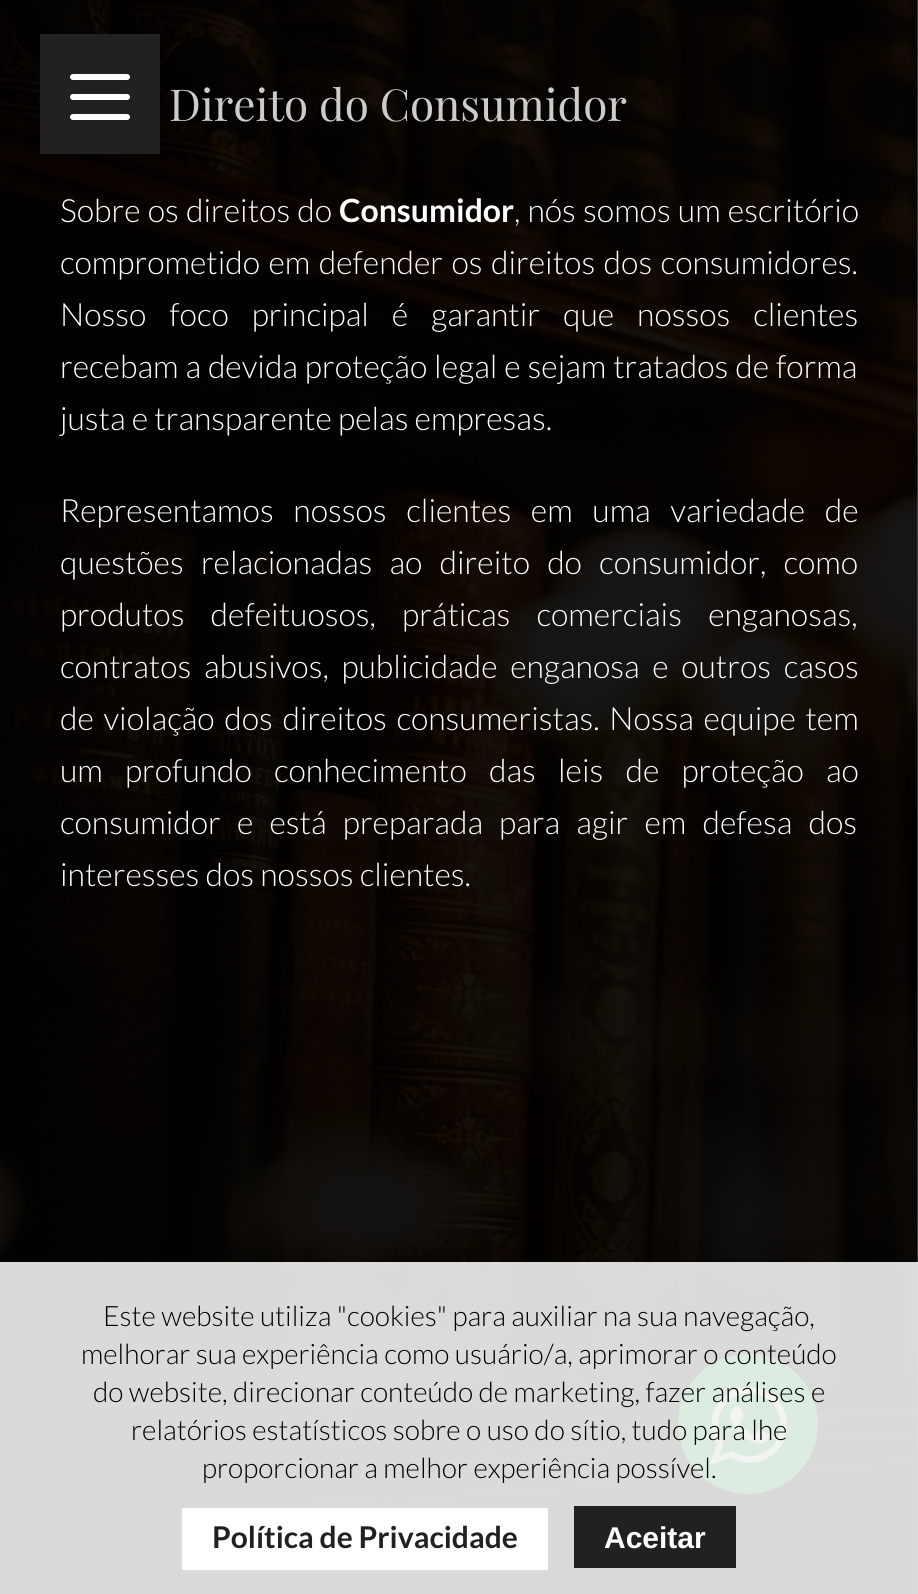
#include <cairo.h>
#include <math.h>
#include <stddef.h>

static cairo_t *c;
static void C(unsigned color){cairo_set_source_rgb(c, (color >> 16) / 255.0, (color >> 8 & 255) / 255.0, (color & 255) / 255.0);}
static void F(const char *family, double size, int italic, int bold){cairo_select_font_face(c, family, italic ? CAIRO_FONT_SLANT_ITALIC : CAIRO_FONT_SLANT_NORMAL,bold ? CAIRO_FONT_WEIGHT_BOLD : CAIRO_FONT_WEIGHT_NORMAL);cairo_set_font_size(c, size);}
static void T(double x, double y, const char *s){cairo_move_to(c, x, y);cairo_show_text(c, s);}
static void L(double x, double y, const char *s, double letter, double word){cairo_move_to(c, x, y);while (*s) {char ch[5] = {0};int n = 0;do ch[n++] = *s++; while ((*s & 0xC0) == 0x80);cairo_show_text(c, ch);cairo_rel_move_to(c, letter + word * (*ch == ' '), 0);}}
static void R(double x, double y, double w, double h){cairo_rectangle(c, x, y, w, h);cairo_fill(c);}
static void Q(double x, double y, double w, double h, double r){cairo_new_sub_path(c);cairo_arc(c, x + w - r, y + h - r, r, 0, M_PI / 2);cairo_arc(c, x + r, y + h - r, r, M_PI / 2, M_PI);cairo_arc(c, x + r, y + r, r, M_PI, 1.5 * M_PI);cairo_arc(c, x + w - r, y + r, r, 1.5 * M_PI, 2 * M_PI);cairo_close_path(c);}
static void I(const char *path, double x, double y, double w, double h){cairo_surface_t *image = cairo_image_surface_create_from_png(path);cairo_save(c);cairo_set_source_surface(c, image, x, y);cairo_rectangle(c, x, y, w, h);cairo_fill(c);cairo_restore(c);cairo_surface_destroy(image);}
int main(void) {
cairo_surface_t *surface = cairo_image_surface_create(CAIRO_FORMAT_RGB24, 918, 1594);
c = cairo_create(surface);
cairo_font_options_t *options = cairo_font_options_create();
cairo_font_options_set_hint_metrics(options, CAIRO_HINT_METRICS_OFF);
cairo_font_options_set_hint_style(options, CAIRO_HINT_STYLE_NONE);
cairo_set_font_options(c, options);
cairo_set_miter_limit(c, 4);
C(0xffffff);
cairo_paint(c);
I("1.png",0,0,918,1594);
C(0x212121);
R(40,34,120,120);
C(0xffffff);
Q(70,94,60,6,3);
cairo_fill(c);
Q(70,74,60,6,3);
cairo_fill(c);
Q(70,114,60,6,3);
cairo_fill(c);
F("Playfair Display",44,0,0);
C(0xcccccc);
T(169,121,"Direito do Consumidor");
F("Lato Light",32,0,0);
C(0xffffff);
L(60,222,"Sobre os direitos do",0,1);
F("Lato",32,0,1);
T(339,222,"Consumidor");
F("Lato Light",32,0,0);
L(514,222,", nós somos um escritório",0,1);
L(60,274,"comprometido em defender os direitos dos consumidores.",0,2.25);
L(60,326,"Nosso foco principal é garantir que nossos clientes",0,16.75);
L(60,378,"recebam a devida proteção legal e sejam tratados de forma",0,.75);
T(60,430,"justa e transparente pelas empresas.");
L(60,522,"Representamos nossos clientes em uma variedade de",0,13.5);
L(60,574,"questões relacionadas ao direito do consumidor, como",0,11);
L(60,626,"produtos defeituosos, práticas comerciais enganosas,",0,20);
L(60,678,"contratos abusivos, publicidade enganosa e outros casos",0,6.5);
L(60,730,"de violação dos direitos consumeristas. Nossa equipe tem",0,3.5);
L(60,782,"um profundo conhecimento das leis de proteção ao",0,16);
L(60,834,"consumidor e está preparada para agir em defesa dos",0,10);
T(60,886,"interesses dos nossos clientes.");
C(0x1ab744);
cairo_new_path(c);
cairo_arc(c,748,1424,70,0,2 * M_PI);
cairo_fill(c);
I("2.png",710,1387,78,78);
cairo_set_source_rgba(c,0.949,0.949,0.949,0.9);
R(0,1262,918,332);
F("Lato Light",28,0,0);
C(0x000000);
T(103,1326,"Este website utiliza \"cookies\" para auxiliar na sua navegação,");
T(81,1364,"melhorar sua experiência como usuário/a, aprimorar o conteúdo");
T(93,1402,"do website, direcionar conteúdo de marketing, fazer análises e");
T(131,1440,"relatórios estatísticos sobre o uso do sítio, tudo para lhe");
T(202,1478,"proporcionar a melhor experiência possível.");
C(0xffffff);
R(182,1508,366,62);
F("Lato",30,0,1);
C(0x212121);
T(212,1548,"Política de Privacidade");
R(574,1506,162,62);
F("Liberation Sans",30,0,1);
C(0xffffff);
T(604,1548,"Aceitar");
cairo_surface_write_to_png(surface, "o.png");
cairo_font_options_destroy(options);
cairo_destroy(c);
cairo_surface_destroy(surface);
return 0;
}
